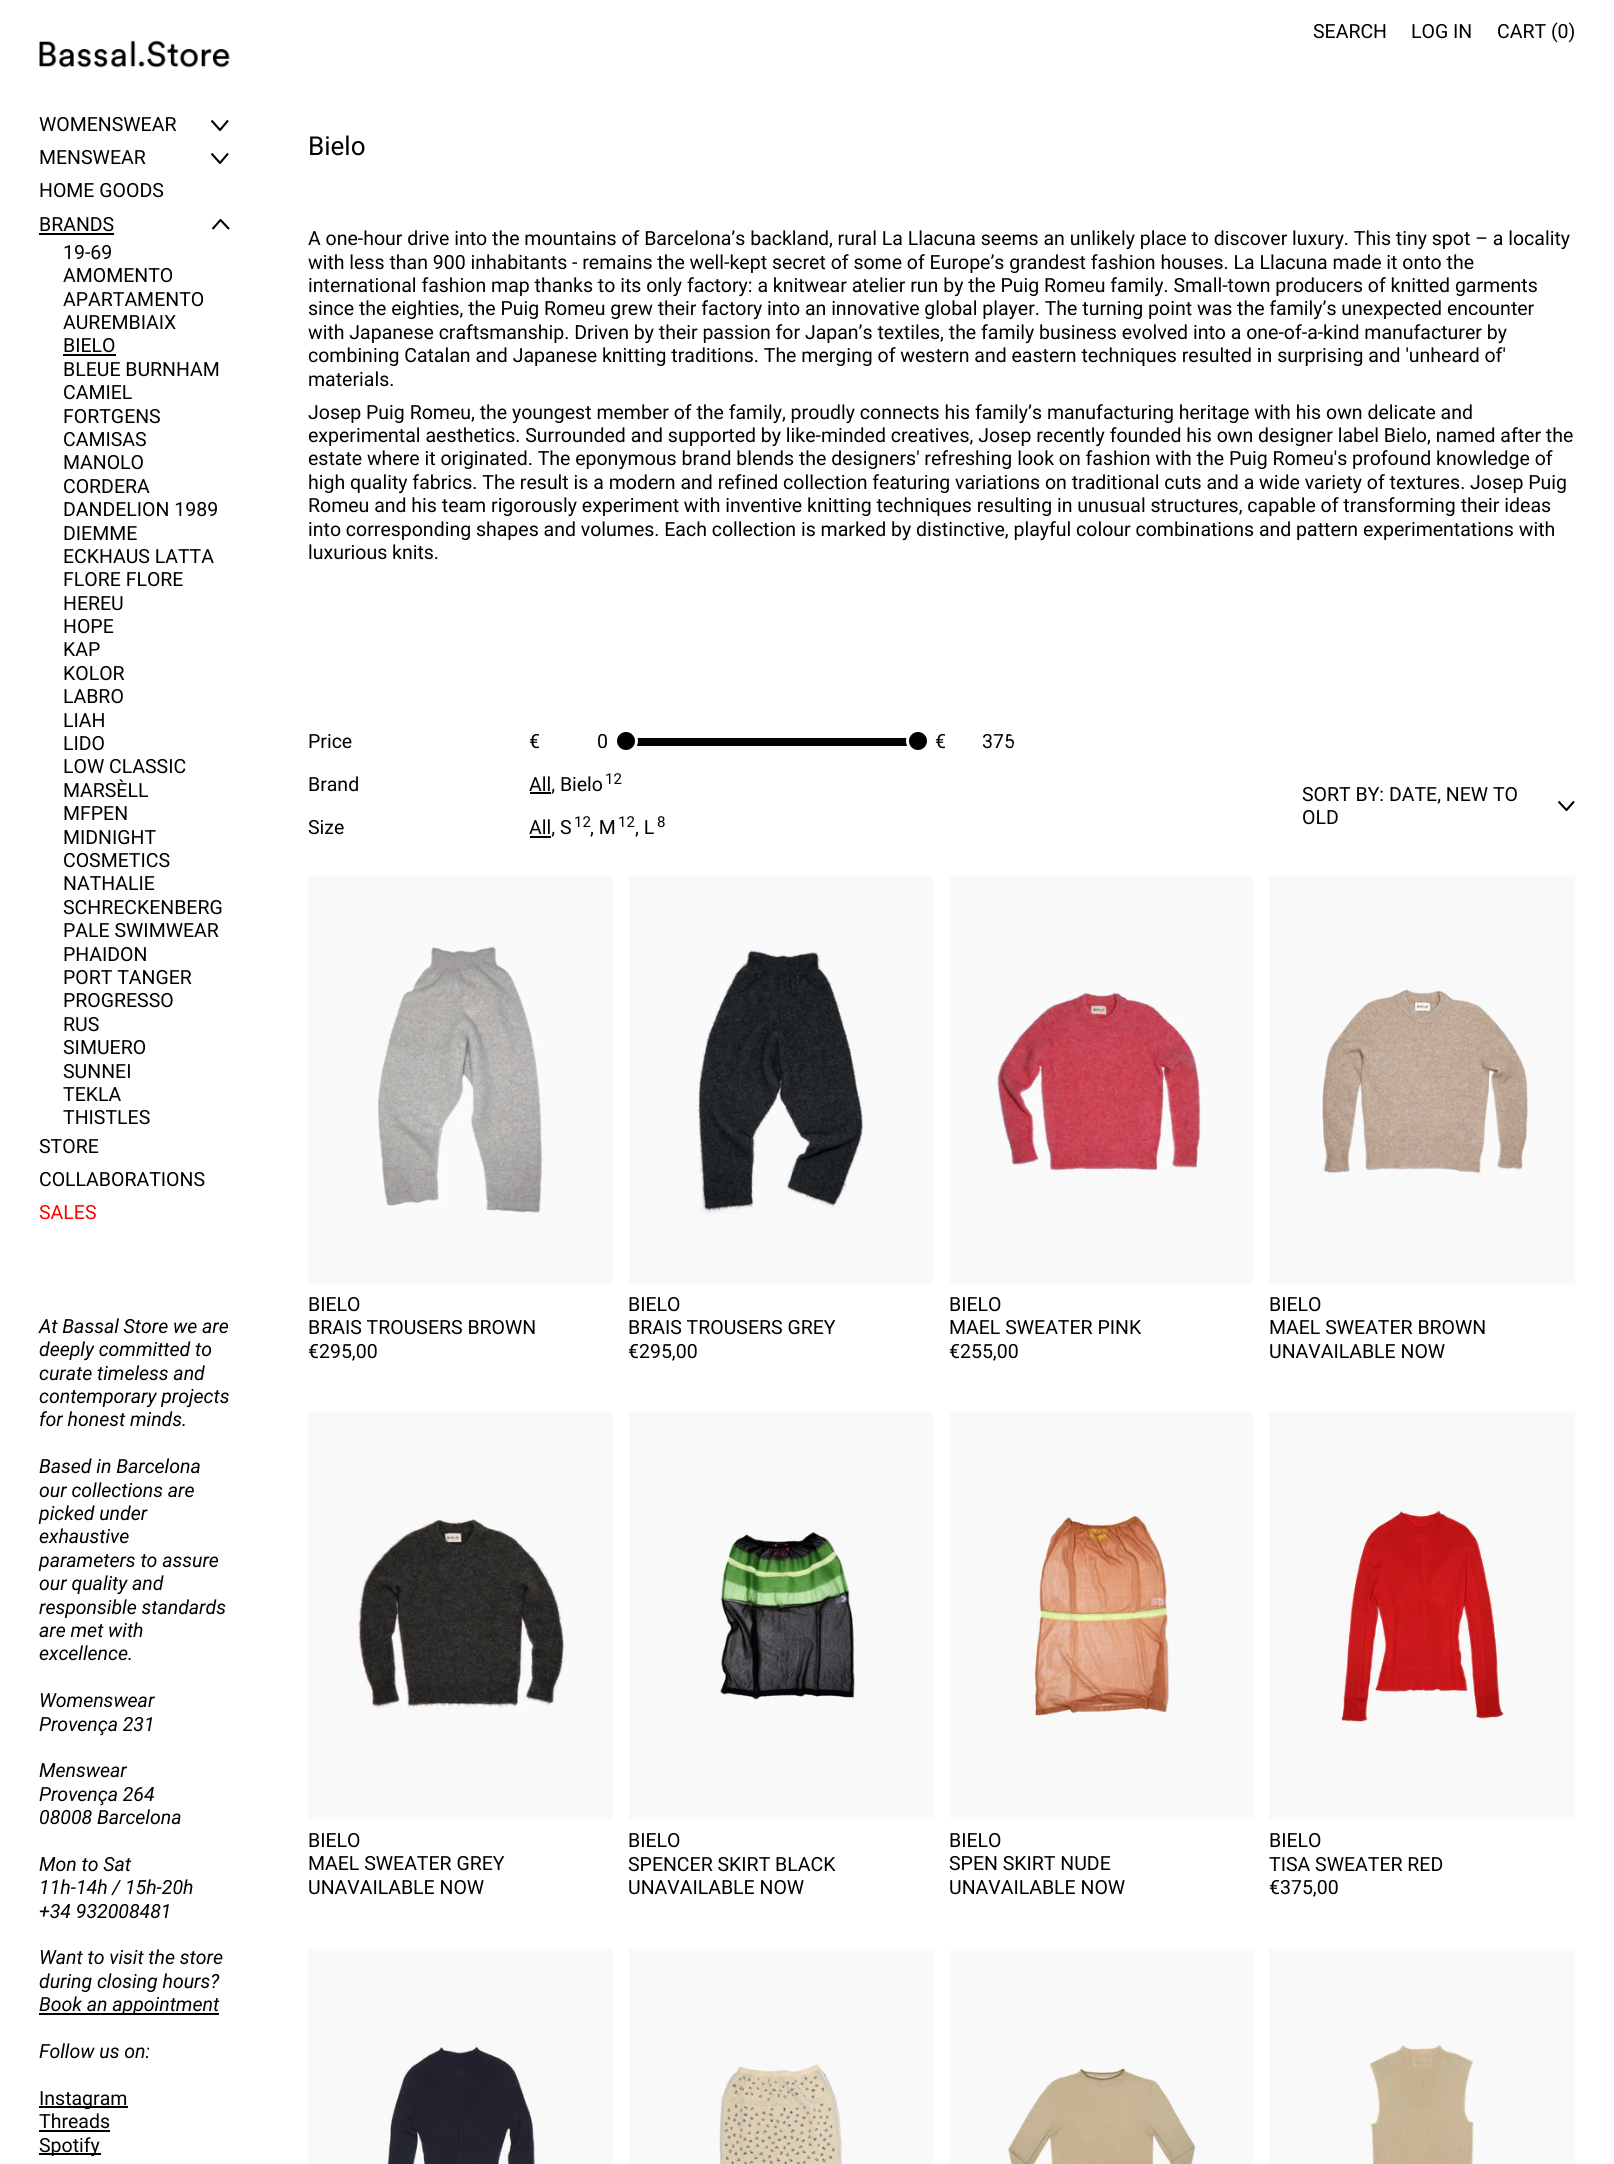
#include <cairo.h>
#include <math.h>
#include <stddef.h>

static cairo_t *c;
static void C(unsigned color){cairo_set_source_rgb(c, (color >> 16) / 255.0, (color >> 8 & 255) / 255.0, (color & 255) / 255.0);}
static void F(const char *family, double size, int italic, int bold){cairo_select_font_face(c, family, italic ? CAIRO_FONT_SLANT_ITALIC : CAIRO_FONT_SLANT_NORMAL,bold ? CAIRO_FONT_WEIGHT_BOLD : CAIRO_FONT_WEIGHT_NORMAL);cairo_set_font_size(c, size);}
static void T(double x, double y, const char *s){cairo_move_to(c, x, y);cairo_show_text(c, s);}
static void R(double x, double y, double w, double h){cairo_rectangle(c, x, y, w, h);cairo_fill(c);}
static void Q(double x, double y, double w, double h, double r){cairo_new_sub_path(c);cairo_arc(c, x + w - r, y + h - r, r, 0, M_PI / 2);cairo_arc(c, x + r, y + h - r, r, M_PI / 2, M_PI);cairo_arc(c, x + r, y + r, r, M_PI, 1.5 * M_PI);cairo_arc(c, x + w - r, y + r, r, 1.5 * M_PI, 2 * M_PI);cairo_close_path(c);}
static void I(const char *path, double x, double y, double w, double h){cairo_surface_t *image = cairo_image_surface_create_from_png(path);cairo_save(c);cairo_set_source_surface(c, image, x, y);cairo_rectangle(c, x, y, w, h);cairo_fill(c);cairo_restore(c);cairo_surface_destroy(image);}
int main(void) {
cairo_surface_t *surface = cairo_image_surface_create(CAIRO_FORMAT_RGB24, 1614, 2164);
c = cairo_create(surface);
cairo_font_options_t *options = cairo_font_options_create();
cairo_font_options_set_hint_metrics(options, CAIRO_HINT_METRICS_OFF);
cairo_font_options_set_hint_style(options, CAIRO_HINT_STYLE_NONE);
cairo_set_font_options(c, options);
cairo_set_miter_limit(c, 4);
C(0xffffff);
cairo_paint(c);
I("1.png",39,40,191,28);
F("Roboto",19.5,0,0);
C(0x000000);
T(39,131,"WOMENSWEAR");
cairo_new_path(c);
cairo_move_to(c,211.5,120.5);
cairo_line_to(c,220,130);
cairo_line_to(c,228,120.5);
cairo_move_to(c,211.5,153.5);
cairo_line_to(c,220,163);
cairo_line_to(c,228,153.5);
cairo_set_line_width(c,2.1);
cairo_set_line_join(c,CAIRO_LINE_JOIN_ROUND);
cairo_stroke(c);
T(39,164,"MENSWEAR");
T(39,197,"HOME GOODS");
T(39,231,"BRANDS");
R(39,233,75,2);
cairo_new_path(c);
cairo_move_to(c,229,229);
cairo_line_to(c,220.5,220);
cairo_line_to(c,212.5,229);
cairo_stroke(c);
T(63,259,"19-69");
T(63,282,"AMOMENTO");
T(63,306,"APARTAMENTO");
T(63,329,"AUREMBIAIX");
T(63,352,"BIELO");
R(63,354,53,2);
T(63,376,"BLEUE BURNHAM");
T(63,399,"CAMIEL");
T(63,423,"FORTGENS");
T(63,446,"CAMISAS");
T(63,469,"MANOLO");
T(63,493,"CORDERA");
T(63,516,"DANDELION 1989");
T(63,540,"DIEMME");
T(63,563,"ECKHAUS LATTA");
T(63,586,"FLORE FLORE");
T(63,610,"HEREU");
T(63,633,"HOPE");
T(63,656,"KAP");
T(63,680,"KOLOR");
T(63,703,"LABRO");
T(63,727,"LIAH");
T(63,750,"LIDO");
T(63,773,"LOW CLASSIC");
T(63,797,"MARSÈLL");
T(63,820,"MFPEN");
T(63,844,"MIDNIGHT");
T(63,867,"COSMETICS");
T(63,890,"NATHALIE");
T(63,914,"SCHRECKENBERG");
T(63,937,"PALE SWIMWEAR");
T(63,961,"PHAIDON");
T(63,984,"PORT TANGER");
T(63,1007,"PROGRESSO");
T(63,1031,"RUS");
T(63,1054,"SIMUERO");
T(63,1078,"SUNNEI");
T(63,1101,"TEKLA");
T(63,1124,"THISTLES");
T(39,1153,"STORE");
T(39,1186,"COLLABORATIONS");
C(0xff0000);
T(39,1219,"SALES");
F("Roboto",19.5,1,0);
C(0x000000);
T(39,1333,"At Bassal Store we are");
T(39,1356,"deeply committed to");
T(39,1380,"curate timeless and");
T(39,1403,"contemporary projects");
T(39,1426,"for honest minds.");
T(39,1473,"Based in Barcelona");
T(39,1497,"our collections are");
T(39,1520,"picked under");
T(39,1543,"exhaustive");
T(39,1567,"parameters to assure");
T(39,1590,"our quality and");
T(39,1614,"responsible standards");
T(39,1637,"are met with");
T(39,1660,"excellence.");
T(39,1707,"Womenswear");
T(39,1731,"Provença 231");
T(39,1777,"Menswear");
T(39,1801,"Provença 264");
T(39,1824,"08008 Barcelona");
T(39,1871,"Mon to Sat");
T(39,1894,"11h-14h / 15h-20h");
T(39,1918,"+34 932008481");
T(39,1964,"Want to visit the store");
T(39,1988,"during closing hours?");
R(39,2013,180,2);
T(39,2011,"Book an appointment");
T(39,2058,"Follow us on:");
R(39,2106,89,2);
F("Roboto",19.5,0,0);
T(39,2105,"Instagram");
T(39,2128,"Threads");
R(39,2130,71,2);
R(39,2153,62,2);
T(39,2152,"Spotify");
T(1313,38,"SEARCH");
T(1411,38,"LOG IN");
T(1497,38,"CART (0)");
F("Roboto",26,0,0);
T(308,155,"Bielo");
F("Roboto",19.5,0,0);
T(308,245,"A one-hour drive into the mountains of Barcelona’s backland, rural La Llacuna seems an unlikely place to discover luxury. This tiny spot – a locality");
T(308,269,"with less than 900 inhabitants - remains the well-kept secret of some of Europe’s grandest fashion houses. La Llacuna made it onto the");
T(308,292,"international fashion map thanks to its only factory: a knitwear atelier run by the Puig Romeu family. Small-town producers of knitted garments");
T(308,315,"since the eighties, the Puig Romeu grew their factory into an innovative global player. The turning point was the family’s unexpected encounter");
T(308,339,"with Japanese craftsmanship. Driven by their passion for Japan’s textiles, the family business evolved into a one-of-a-kind manufacturer by");
T(308,362,"combining Catalan and Japanese knitting traditions. The merging of western and eastern techniques resulted in surprising and 'unheard of'");
T(308,386,"materials.");
T(308,419,"Josep Puig Romeu, the youngest member of the family, proudly connects his family’s manufacturing heritage with his own delicate and");
T(308,442,"experimental aesthetics. Surrounded and supported by like-minded creatives, Josep recently founded his own designer label Bielo, named after the");
T(308,465,"estate where it originated. The eponymous brand blends the designers' refreshing look on fashion with the Puig Romeu's profound knowledge of");
T(308,489,"high quality fabrics. The result is a modern and refined collection featuring variations on traditional cuts and a wide variety of textures. Josep Puig");
T(308,512,"Romeu and his team rigorously experiment with inventive knitting techniques resulting in unusual structures, capable of transforming their ideas");
T(308,536,"into corresponding shapes and volumes. Each collection is marked by distinctive, playful colour combinations and pattern experimentations with");
T(308,559,"luxurious knits.");
T(308,748,"Price");
T(529,748,"€");
T(597,748,"0");
R(636,738,272,8);
cairo_new_path(c);
cairo_arc(c,626,741,10.5,0,2 * M_PI);
cairo_fill_preserve(c);
C(0xffffff);
cairo_set_line_width(c,3);
cairo_set_line_join(c,CAIRO_LINE_JOIN_MITER);
cairo_stroke(c);
C(0x000000);
cairo_arc(c,918,741,10.5,0,2 * M_PI);
cairo_fill_preserve(c);
C(0xffffff);
cairo_stroke(c);
C(0x000000);
T(935,748,"€");
cairo_save(c);
Q(935,731,79,22,11);
cairo_clip(c);
T(982,748,"375");
cairo_restore(c);
T(308,791,"Brand");
R(530,792,21,2);
T(529,791,"All, Bielo");
F("Roboto",15,0,0);
T(605,784,"12");
F("Roboto",19.5,0,0);
T(308,834,"Size");
R(530,836,21,2);
T(529,834,"All, S");
F("Roboto",15,0,0);
T(574,827,"12");
F("Roboto",19.5,0,0);
T(590,834,", M");
F("Roboto",15,0,0);
T(618,827,"12");
F("Roboto",19.5,0,0);
T(635,834,", L");
F("Roboto",15,0,0);
T(657,827,"8");
F("Roboto",19.5,0,0);
T(1302,801,"SORT BY: DATE, NEW TO");
cairo_new_path(c);
cairo_move_to(c,1558.5,801.5);
cairo_line_to(c,1566.5,810);
cairo_line_to(c,1574,801.5);
cairo_set_line_width(c,2.1);
cairo_set_line_join(c,CAIRO_LINE_JOIN_ROUND);
cairo_stroke(c);
T(1302,824,"OLD");
I("2.png",308,876,305,408);
T(308,1311,"BIELO");
T(308,1334,"BRAIS TROUSERS BROWN");
T(308,1358,"€295,00");
I("3.png",629,876,305,408);
T(628,1311,"BIELO");
T(628,1334,"BRAIS TROUSERS GREY");
T(628,1358,"€295,00");
I("4.png",950,876,304,408);
T(949,1311,"BIELO");
T(949,1334,"MAEL SWEATER PINK");
T(949,1358,"€255,00");
I("5.png",1269,876,306,408);
T(1269,1311,"BIELO");
T(1269,1334,"MAEL SWEATER BROWN");
T(1269,1358,"UNAVAILABLE NOW");
I("6.png",308,1412,305,407);
T(308,1847,"BIELO");
T(308,1870,"MAEL SWEATER GREY");
T(308,1894,"UNAVAILABLE NOW");
I("7.png",629,1412,305,407);
T(628,1847,"BIELO");
T(628,1871,"SPENCER SKIRT BLACK");
T(628,1894,"UNAVAILABLE NOW");
I("8.png",950,1412,304,407);
T(949,1847,"BIELO");
T(949,1870,"SPEN SKIRT NUDE");
T(949,1894,"UNAVAILABLE NOW");
I("9.png",1269,1412,306,407);
T(1269,1847,"BIELO");
T(1269,1871,"TISA SWEATER RED");
T(1269,1894,"€375,00");
I("10.png",308,1949,305,215);
I("11.png",629,1949,305,215);
I("12.png",950,1949,304,215);
I("13.png",1269,1949,306,215);
cairo_surface_write_to_png(surface, "o.png");
cairo_font_options_destroy(options);
cairo_destroy(c);
cairo_surface_destroy(surface);
return 0;
}
